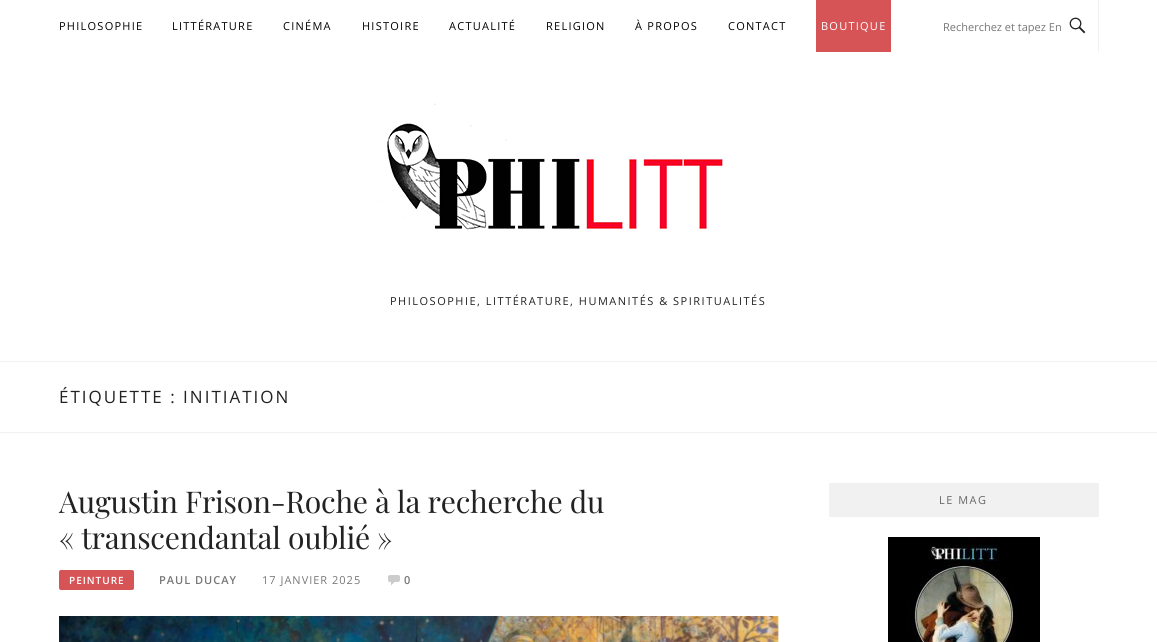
#include <cairo.h>
#include <math.h>
#include <stddef.h>

static cairo_t *c;
static void C(unsigned color){cairo_set_source_rgb(c, (color >> 16) / 255.0, (color >> 8 & 255) / 255.0, (color & 255) / 255.0);}
static void F(const char *family, double size, int italic, int bold){cairo_select_font_face(c, family, italic ? CAIRO_FONT_SLANT_ITALIC : CAIRO_FONT_SLANT_NORMAL,bold ? CAIRO_FONT_WEIGHT_BOLD : CAIRO_FONT_WEIGHT_NORMAL);cairo_set_font_size(c, size);}
static void T(double x, double y, const char *s){cairo_move_to(c, x, y);cairo_show_text(c, s);}
static void L(double x, double y, const char *s, double letter, double word){cairo_move_to(c, x, y);while (*s) {char ch[5] = {0};int n = 0;do ch[n++] = *s++; while ((*s & 0xC0) == 0x80);cairo_show_text(c, ch);cairo_rel_move_to(c, letter + word * (*ch == ' '), 0);}}
static void R(double x, double y, double w, double h){cairo_rectangle(c, x, y, w, h);cairo_fill(c);}
static void Q(double x, double y, double w, double h, double r){cairo_new_sub_path(c);cairo_arc(c, x + w - r, y + h - r, r, 0, M_PI / 2);cairo_arc(c, x + r, y + h - r, r, M_PI / 2, M_PI);cairo_arc(c, x + r, y + r, r, M_PI, 1.5 * M_PI);cairo_arc(c, x + w - r, y + r, r, 1.5 * M_PI, 2 * M_PI);cairo_close_path(c);}
static void I(const char *path, double x, double y, double w, double h){cairo_surface_t *image = cairo_image_surface_create_from_png(path);cairo_save(c);cairo_set_source_surface(c, image, x, y);cairo_rectangle(c, x, y, w, h);cairo_fill(c);cairo_restore(c);cairo_surface_destroy(image);}
int main(void) {
cairo_surface_t *surface = cairo_image_surface_create(CAIRO_FORMAT_RGB24, 1157, 642);
c = cairo_create(surface);
cairo_font_options_t *options = cairo_font_options_create();
cairo_font_options_set_hint_metrics(options, CAIRO_HINT_METRICS_OFF);
cairo_font_options_set_hint_style(options, CAIRO_HINT_STYLE_NONE);
cairo_set_font_options(c, options);
cairo_set_miter_limit(c, 4);
C(0xffffff);
cairo_paint(c);
F("Open Sans",11,0,0);
C(0x000000);
L(59,30,"PHILOSOPHIE",1.25,0);
L(172,30,"LITTÉRATURE",1.25,0);
L(283,30,"CINÉMA",1.25,0);
L(362,30,"HISTOIRE",1.25,0);
L(449,30,"ACTUALITÉ",1.25,0);
L(546,30,"RELIGION",1.25,0);
L(635,30,"À PROPOS",1.25,0);
L(728,30,"CONTACT",1.25,0);
C(0xd65456);
R(816,0,75,52);
C(0xffffff);
L(821,30,"BOUTIQUE",1.25,0);
C(0xf1f1f1);
R(1098,0,1,52);
C(0x777777);
T(943,31,"Recherchez et tapez En");
I("1.png",1069,17,17,17);
I("2.png",381,103,342,127);
C(0x222222);
L(390,305,"PHILOSOPHIE, LITTÉRATURE, HUMANITÉS & SPIRITUALITÉS",1.5,0);
C(0xf1f1f1);
R(0,361,1157,1);
F("Open Sans",17,0,0);
C(0x222222);
L(59,403,"ÉTIQUETTE : INITIATION",2,0);
C(0xf1f1f1);
R(0,432,1157,1);
F("Playfair Display",30,0,0);
C(0x222222);
L(59,513,"Augustin Frison-Roche à la recherche du",-.2,0);
L(59,549,"« transcendantal oublié »",-.2,0);
C(0xd65456);
Q(59,570,75,20,2);
cairo_fill(c);
F("Open Sans SemiBold",10,0,0);
C(0xffffff);
L(69,584,"PEINTURE",1,0);
F("Open Sans SemiBold",11,0,0);
C(0x777777);
L(159,584,"PAUL DUCAY",1,0);
F("Open Sans",11,0,0);
L(262,584,"17 JANVIER 2025",1,0);
I("3.png",388,575,12,11);
F("Open Sans SemiBold",11,0,0);
L(404,584,"0",1,0);
I("4.png",59,616,720,26);
C(0xf1f1f1);
R(829,483,270,34);
F("Open Sans",11,0,0);
C(0x666666);
L(939,504,"LE MAG",1.5,0);
I("5.png",888,537,152,105);
cairo_surface_write_to_png(surface, "o.png");
cairo_font_options_destroy(options);
cairo_destroy(c);
cairo_surface_destroy(surface);
return 0;
}
